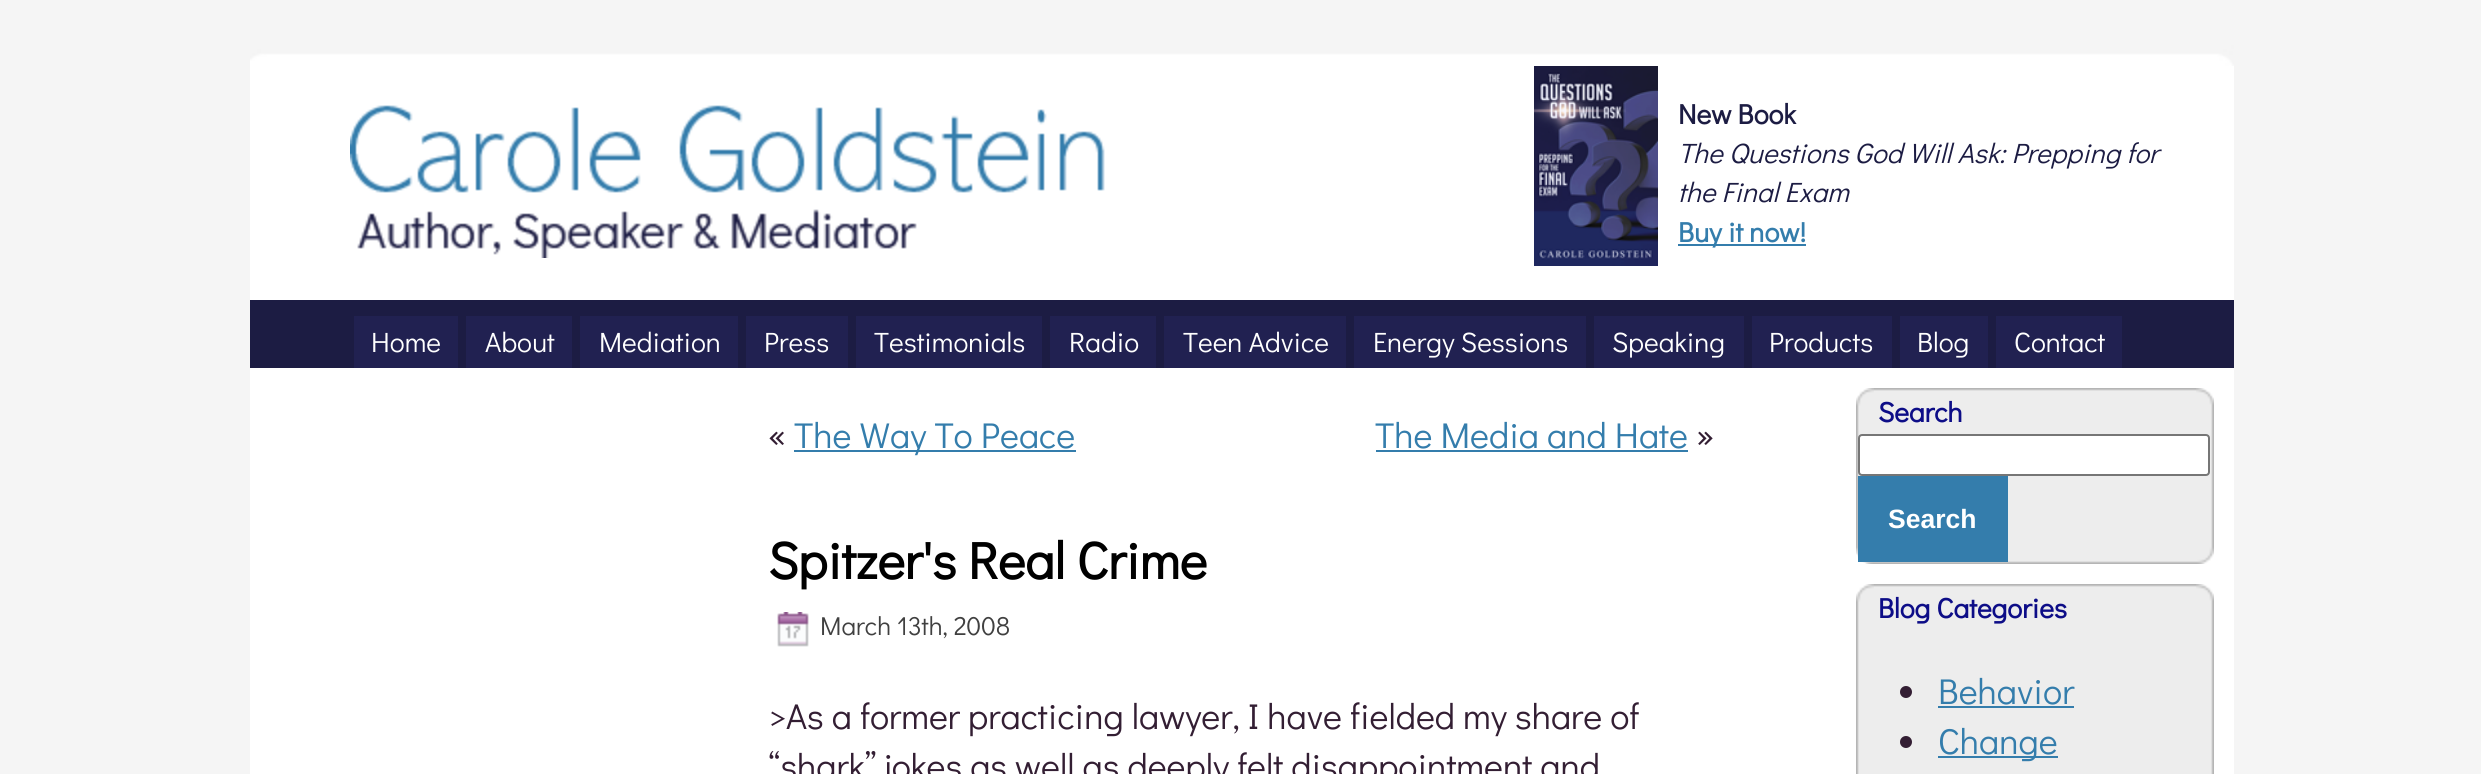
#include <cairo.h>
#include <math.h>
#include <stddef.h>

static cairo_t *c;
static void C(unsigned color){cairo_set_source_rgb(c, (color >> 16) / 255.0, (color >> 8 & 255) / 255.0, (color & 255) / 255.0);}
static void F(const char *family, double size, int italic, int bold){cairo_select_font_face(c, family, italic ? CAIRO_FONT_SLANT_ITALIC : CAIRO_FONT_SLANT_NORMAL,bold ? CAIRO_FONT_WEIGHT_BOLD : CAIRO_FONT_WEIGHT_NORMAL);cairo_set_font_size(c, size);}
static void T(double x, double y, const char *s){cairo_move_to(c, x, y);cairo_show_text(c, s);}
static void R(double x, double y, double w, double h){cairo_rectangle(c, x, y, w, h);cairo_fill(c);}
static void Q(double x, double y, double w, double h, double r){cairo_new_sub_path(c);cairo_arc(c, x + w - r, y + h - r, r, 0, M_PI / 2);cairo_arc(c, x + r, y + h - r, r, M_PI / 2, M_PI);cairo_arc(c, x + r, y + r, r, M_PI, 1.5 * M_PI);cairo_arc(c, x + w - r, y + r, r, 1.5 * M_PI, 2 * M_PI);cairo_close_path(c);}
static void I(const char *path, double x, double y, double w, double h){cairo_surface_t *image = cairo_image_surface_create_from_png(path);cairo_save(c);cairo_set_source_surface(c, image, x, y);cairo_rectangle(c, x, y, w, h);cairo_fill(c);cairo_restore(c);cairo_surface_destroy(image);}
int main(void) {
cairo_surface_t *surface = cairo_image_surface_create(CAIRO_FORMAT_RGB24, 2481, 774);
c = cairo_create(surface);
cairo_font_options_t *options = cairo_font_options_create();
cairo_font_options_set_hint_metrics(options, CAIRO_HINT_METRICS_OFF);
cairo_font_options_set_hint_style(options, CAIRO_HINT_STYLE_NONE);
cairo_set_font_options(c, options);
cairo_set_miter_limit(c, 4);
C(0xf5f5f5);
cairo_paint(c);
C(0xffffff);
R(250,66,1984,708);
I("1.png",250,0,1984,66);
I("2.png",350,105,755,153);
I("3.png",1534,66,124,200);
F("Didact Gothic",28,0,1);
C(0x1c1c43);
T(1678,124,"New Book");
F("Didact Gothic",28,1,0);
T(1678,163,"The Questions God Will Ask: Prepping for");
T(1678,202,"the Final Exam");
C(0x347dac);
R(1678,244,128,2);
F("Didact Gothic",28,0,1);
T(1678,242,"Buy it now!");
C(0x1c1c43);
R(250,300,1984,68);
C(0x212151);
R(354,316,104,52);
F("Didact Gothic",28,0,0);
C(0xffffff);
T(371,352,"Home");
C(0x212151);
R(466,316,106,52);
C(0xffffff);
T(485,352,"About");
C(0x212151);
R(580,316,158,52);
C(0xffffff);
T(599,352,"Mediation");
C(0x212151);
R(746,316,102,52);
C(0xffffff);
T(764,352,"Press");
C(0x212151);
R(856,316,186,52);
C(0xffffff);
T(874,352,"Testimonials");
C(0x212151);
R(1050,316,106,52);
C(0xffffff);
T(1069,352,"Radio");
C(0x212151);
R(1164,316,182,52);
C(0xffffff);
T(1183,352,"Teen Advice");
C(0x212151);
R(1354,316,232,52);
C(0xffffff);
T(1373,352,"Energy Sessions");
C(0x212151);
R(1594,316,150,52);
C(0xffffff);
T(1612,352,"Speaking");
C(0x212151);
R(1752,316,140,52);
C(0xffffff);
T(1769,352,"Products");
C(0x212151);
R(1900,316,88,52);
C(0xffffff);
T(1917,352,"Blog");
C(0x212151);
R(1996,316,126,52);
C(0xffffff);
T(2014,352,"Contact");
F("Didact Gothic",36,0,0);
C(0x331e33);
T(768,448,"«");
C(0x347dac);
R(794,450,282,2);
T(794,448,"The Way To Peace");
T(1375,448,"The Media and Hate");
R(1376,450,312,2);
C(0x331e33);
T(1696,448,"»");
F("Didact Gothic",52,0,1);
C(0x000000);
T(768,579,"Spitzer's Real Crime");
I("4.png",777,612,32,35);
F("Didact Gothic",26,0,0);
C(0x404040);
T(820,635,"March 13th, 2008");
F("Didact Gothic",36,0,0);
C(0x331e33);
T(768,729,">As a former practicing lawyer, I have fielded my share of");
T(768,779,"“shark” jokes as well as deeply felt disappointment and");
I("5.png",1856,388,18,18);
I("6.png",1874,388,322,18);
I("7.png",2196,388,18,18);
I("8.png",1856,406,18,140);
C(0xededed);
R(1874,406,322,140);
F("Didact Gothic",28,0,1);
C(0x0d0d87);
T(1878,422,"Search");
I("9.png",2196,406,18,140);
C(0xffffff);
Q(1859,435,350,40,3);
cairo_fill_preserve(c);
C(0x767676);
cairo_stroke(c);
I("10.png",1856,546,18,18);
I("11.png",1874,546,322,18);
C(0x347dac);
R(1858,476,150,86);
F("Liberation Sans",26.5,0,1);
C(0xffffff);
T(1888,528,"Search");
I("12.png",2196,546,18,18);
I("5.png",1856,584,18,18);
I("6.png",1874,584,322,18);
I("7.png",2196,584,18,18);
I("13.png",1856,602,18,172);
C(0xededed);
R(1874,602,322,172);
F("Didact Gothic",28,0,1);
C(0x0d0d87);
T(1878,618,"Blog Categories");
C(0x331e33);
cairo_new_path(c);
cairo_arc(c,1906,692,6,0,2 * M_PI);
cairo_fill(c);
F("Didact Gothic",36,0,0);
C(0x347dac);
T(1938,704,"Behavior");
R(1938,706,136,2);
C(0x331e33);
cairo_new_path(c);
cairo_arc(c,1906,742,6,0,2 * M_PI);
cairo_fill(c);
C(0x347dac);
R(1938,756,120,2);
T(1938,754,"Change");
I("14.png",2196,602,18,172);
cairo_surface_write_to_png(surface, "o.png");
cairo_font_options_destroy(options);
cairo_destroy(c);
cairo_surface_destroy(surface);
return 0;
}
